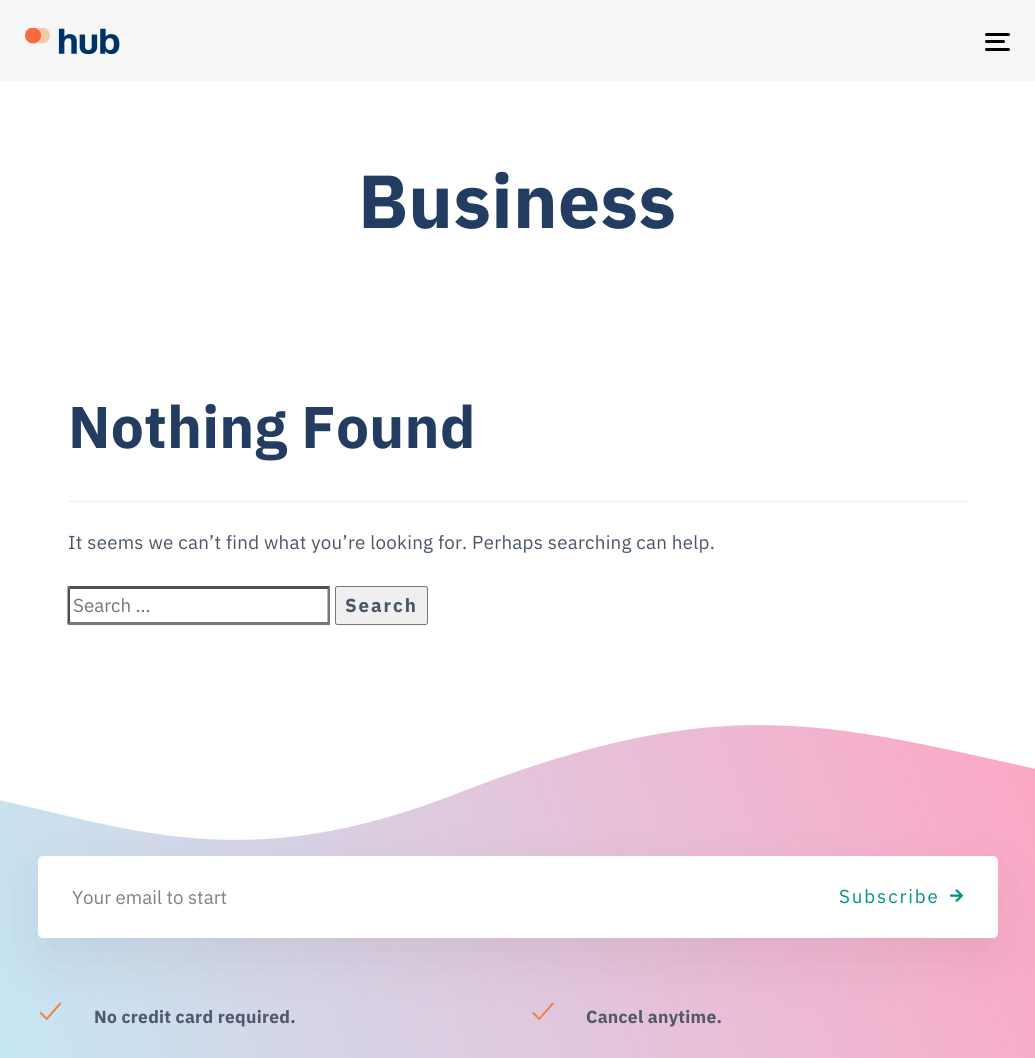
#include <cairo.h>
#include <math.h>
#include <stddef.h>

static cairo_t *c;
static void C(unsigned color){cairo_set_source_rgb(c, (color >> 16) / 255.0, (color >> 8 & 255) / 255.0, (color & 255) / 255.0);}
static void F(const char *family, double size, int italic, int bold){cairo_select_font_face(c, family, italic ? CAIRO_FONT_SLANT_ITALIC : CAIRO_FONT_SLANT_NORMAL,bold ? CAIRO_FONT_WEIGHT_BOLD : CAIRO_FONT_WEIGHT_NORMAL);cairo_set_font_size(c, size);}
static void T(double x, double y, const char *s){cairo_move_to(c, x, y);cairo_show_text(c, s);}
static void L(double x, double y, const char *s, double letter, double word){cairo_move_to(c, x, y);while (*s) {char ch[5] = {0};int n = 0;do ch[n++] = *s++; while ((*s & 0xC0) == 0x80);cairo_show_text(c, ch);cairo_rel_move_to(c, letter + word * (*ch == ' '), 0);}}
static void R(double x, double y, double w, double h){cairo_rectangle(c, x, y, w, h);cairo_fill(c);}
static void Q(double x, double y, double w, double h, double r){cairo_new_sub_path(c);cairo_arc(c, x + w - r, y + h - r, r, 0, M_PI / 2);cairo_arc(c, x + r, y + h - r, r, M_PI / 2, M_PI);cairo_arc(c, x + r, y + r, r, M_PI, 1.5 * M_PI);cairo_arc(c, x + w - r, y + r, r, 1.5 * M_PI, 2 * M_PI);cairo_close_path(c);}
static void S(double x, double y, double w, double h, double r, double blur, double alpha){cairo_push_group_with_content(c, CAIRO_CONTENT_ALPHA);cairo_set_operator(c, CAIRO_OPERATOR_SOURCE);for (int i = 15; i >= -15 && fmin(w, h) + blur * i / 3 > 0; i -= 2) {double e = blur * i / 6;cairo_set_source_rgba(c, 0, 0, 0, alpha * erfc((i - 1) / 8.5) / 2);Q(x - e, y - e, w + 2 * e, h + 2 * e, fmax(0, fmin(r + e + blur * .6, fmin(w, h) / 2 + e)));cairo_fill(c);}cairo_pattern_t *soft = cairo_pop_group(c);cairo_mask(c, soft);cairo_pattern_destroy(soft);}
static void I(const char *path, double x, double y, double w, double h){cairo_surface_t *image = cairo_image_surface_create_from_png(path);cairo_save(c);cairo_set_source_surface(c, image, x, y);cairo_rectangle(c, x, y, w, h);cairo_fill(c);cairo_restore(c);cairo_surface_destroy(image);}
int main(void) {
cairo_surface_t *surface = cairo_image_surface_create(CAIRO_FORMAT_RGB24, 1035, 1058);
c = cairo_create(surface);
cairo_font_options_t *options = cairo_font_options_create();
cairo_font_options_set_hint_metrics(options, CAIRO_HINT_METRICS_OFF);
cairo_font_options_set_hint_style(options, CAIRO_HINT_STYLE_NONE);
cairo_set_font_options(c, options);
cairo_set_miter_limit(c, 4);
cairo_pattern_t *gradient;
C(0xffffff);
cairo_paint(c);
C(0xf6f6f6);
R(0,0,1035,81);
I("1.png",25,28,95,26);
C(0x000000);
Q(985,33,25,3,1.5);
cairo_fill(c);
Q(985,40,20,3,1.5);
cairo_fill(c);
Q(985,48,25,3,1.5);
cairo_fill(c);
F("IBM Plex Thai",75,0,1);
C(0x233d62);
L(358,228,"Business",.25,0);
C(0xeeeeee);
R(68,501,900,1);
F("IBM Plex Thai",58.75,0,1);
C(0x233d62);
L(68,448,"Nothing Found",.25,0);
F("IBM Plex Thai",18.75,0,0);
C(0x485666);
L(68,549,"It seems we can’t find what you’re looking for. Perhaps searching can help.",.25,0);
C(0x4f4f4f);
cairo_new_path(c);
cairo_move_to(c,68,586);
cairo_line_to(c,330,586);
cairo_line_to(c,328,589);
cairo_line_to(c,70,589);
cairo_close_path(c);
cairo_fill(c);
C(0x767676);
cairo_new_path(c);
cairo_move_to(c,330,586);
cairo_line_to(c,330,625);
cairo_line_to(c,327.5,622.5);
cairo_line_to(c,327.5,589);
cairo_close_path(c);
cairo_fill(c);
cairo_new_path(c);
cairo_move_to(c,330,625);
cairo_line_to(c,68,625);
cairo_line_to(c,70,622);
cairo_line_to(c,328,622);
cairo_close_path(c);
cairo_fill(c);
C(0x4f4f4f);
cairo_new_path(c);
cairo_move_to(c,67.5,625);
cairo_line_to(c,67.5,586);
cairo_line_to(c,70,589);
cairo_line_to(c,70,622.5);
cairo_close_path(c);
cairo_fill(c);
C(0x757575);
T(73,612,"Search …");
C(0xefefef);
Q(335.5,586.5,92,38,2);
cairo_fill_preserve(c);
C(0x767676);
cairo_set_line_width(c,1);
cairo_stroke(c);
F("IBM Plex Thai",18.75,0,1);
C(0x485666);
L(345,612,"Search",1.9,0);
gradient = cairo_pattern_create_linear(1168,996,-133,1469);
cairo_pattern_add_color_stop_rgba(gradient,0,1,0.647,0.769,1);
cairo_pattern_add_color_stop_rgba(gradient,1,0.722,0.965,1,1);
cairo_set_source(c,gradient);
cairo_pattern_destroy(gradient);
R(0,725,1035,333);
cairo_save(c);
cairo_rectangle(c,0,630,1035,213);
cairo_clip(c);
C(0xffffff);
cairo_new_path(c);
cairo_move_to(c,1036,769);
cairo_curve_to(c,824,722,721,692,466,790);
cairo_curve_to(c,240,881,128,826,-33,793);
cairo_curve_to(c,-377,734,-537,675,-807,769);
cairo_line_to(c,-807,562);
cairo_line_to(c,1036,562);
cairo_close_path(c);
cairo_fill(c);
cairo_restore(c);
C(0x000000);
S(38,876,960,82,5,31,.07);
C(0xffffff);
Q(38.5,856.5,959,81,4.5);
cairo_fill_preserve(c);
cairo_stroke(c);
F("IBM Plex Thai",18.75,0,0);
C(0x7e8085);
T(72,904,"Your email to start");
C(0x00937e);
L(839,903,"Subscribe",1.9,0);
I("2.png",950,889,14,13);
I("3.png",39,1002,23,18);
F("IBM Plex Thai",17.5,0,1);
C(0x50596c);
L(94,1023,"No credit card required.",.25,0);
I("4.png",532,1002,22,18);
L(586,1023,"Cancel anytime.",.25,0);
cairo_surface_write_to_png(surface, "o.png");
cairo_font_options_destroy(options);
cairo_destroy(c);
cairo_surface_destroy(surface);
return 0;
}
